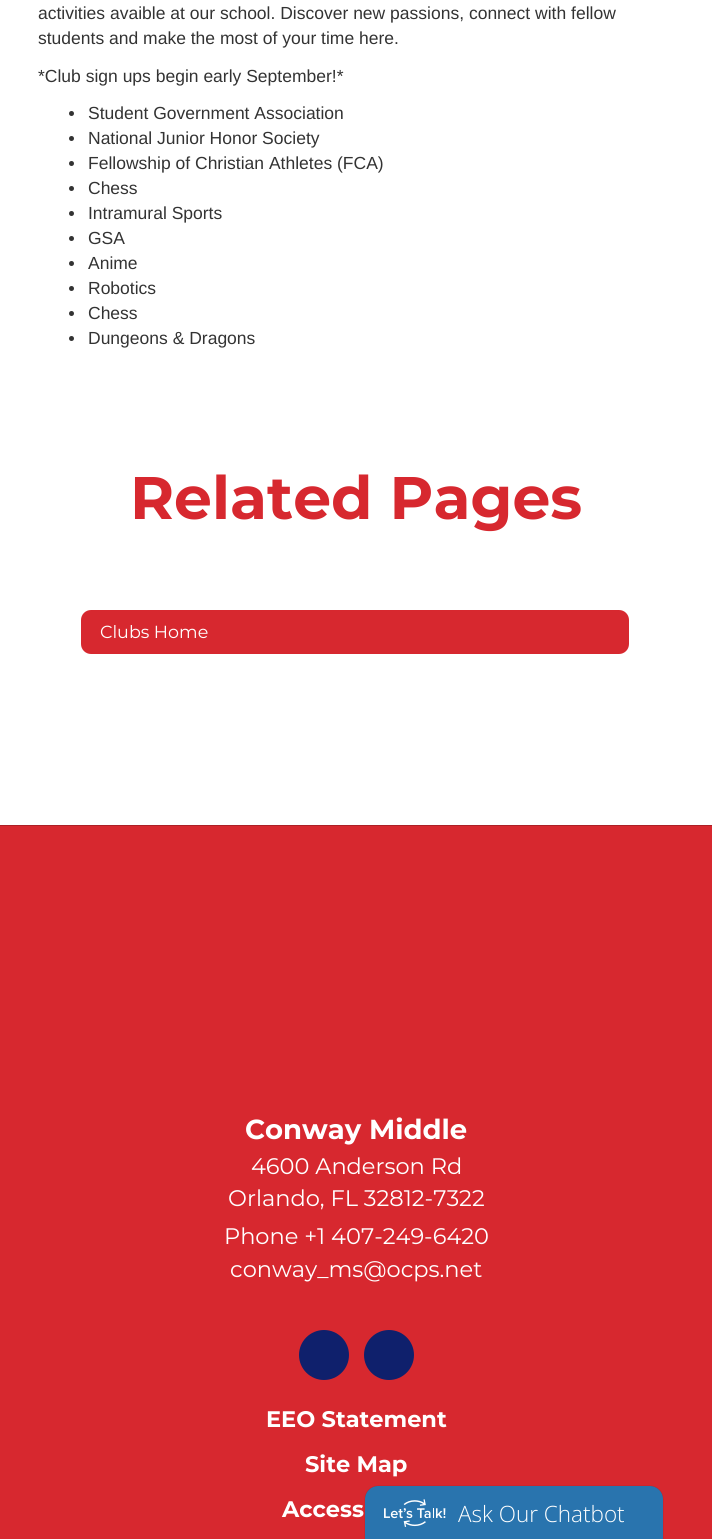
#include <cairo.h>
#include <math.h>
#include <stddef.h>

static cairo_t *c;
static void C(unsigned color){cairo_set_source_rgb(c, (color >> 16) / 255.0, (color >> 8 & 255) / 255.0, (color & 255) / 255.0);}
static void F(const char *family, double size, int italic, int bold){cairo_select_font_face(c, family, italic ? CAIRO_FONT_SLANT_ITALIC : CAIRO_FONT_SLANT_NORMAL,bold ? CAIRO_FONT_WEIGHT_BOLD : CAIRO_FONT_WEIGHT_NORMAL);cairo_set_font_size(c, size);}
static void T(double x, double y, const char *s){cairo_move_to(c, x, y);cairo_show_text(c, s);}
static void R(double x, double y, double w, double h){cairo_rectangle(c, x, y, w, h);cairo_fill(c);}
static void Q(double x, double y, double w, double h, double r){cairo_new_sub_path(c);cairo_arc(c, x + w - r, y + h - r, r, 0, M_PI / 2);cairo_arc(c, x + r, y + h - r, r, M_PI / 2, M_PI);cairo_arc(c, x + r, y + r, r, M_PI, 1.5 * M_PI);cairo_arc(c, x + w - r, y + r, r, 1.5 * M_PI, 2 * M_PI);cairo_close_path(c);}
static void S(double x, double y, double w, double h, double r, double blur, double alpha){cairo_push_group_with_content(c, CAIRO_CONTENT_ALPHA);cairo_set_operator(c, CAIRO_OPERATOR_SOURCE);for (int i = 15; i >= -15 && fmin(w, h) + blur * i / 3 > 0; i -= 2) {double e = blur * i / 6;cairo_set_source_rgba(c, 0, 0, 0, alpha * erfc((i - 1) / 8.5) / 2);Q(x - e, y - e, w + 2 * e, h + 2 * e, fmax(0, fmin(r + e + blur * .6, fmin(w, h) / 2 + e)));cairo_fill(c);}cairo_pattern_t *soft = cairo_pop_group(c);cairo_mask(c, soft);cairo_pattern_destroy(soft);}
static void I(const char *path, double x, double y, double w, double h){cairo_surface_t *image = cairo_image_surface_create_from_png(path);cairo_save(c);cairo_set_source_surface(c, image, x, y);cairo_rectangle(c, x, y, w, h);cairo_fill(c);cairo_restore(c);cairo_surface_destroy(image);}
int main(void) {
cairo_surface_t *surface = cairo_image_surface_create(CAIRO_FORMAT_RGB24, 712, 1539);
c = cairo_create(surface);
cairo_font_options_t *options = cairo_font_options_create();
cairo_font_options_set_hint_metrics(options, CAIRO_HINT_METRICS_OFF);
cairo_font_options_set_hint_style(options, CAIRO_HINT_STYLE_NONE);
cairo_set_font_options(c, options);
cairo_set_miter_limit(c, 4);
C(0xffffff);
cairo_paint(c);
F("Liberation Sans",17.5,0,0);
C(0x333333);
T(38,19,"activities avaible at our school. Discover new passions, connect with fellow");
T(38,44,"students and make the most of your time here.");
T(38,82,"*Club sign ups begin early September!*");
cairo_new_path(c);
cairo_arc(c,71.5,113.5,2.5,0,2 * M_PI);
cairo_fill(c);
T(88,119,"Student Government Association");
cairo_new_path(c);
cairo_arc(c,71.5,138.5,2.5,0,2 * M_PI);
cairo_fill(c);
T(88,144,"National Junior Honor Society");
cairo_new_path(c);
cairo_arc(c,71.5,163.5,2.5,0,2 * M_PI);
cairo_fill(c);
T(88,169,"Fellowship of Christian Athletes (FCA)");
cairo_new_path(c);
cairo_arc(c,71.5,188.5,2.5,0,2 * M_PI);
cairo_fill(c);
T(88,194,"Chess");
cairo_new_path(c);
cairo_arc(c,71.5,213.5,2.5,0,2 * M_PI);
cairo_fill(c);
T(88,219,"Intramural Sports");
cairo_new_path(c);
cairo_arc(c,71.5,238.5,2.5,0,2 * M_PI);
cairo_fill(c);
T(88,244,"GSA");
cairo_new_path(c);
cairo_arc(c,71.5,263.5,2.5,0,2 * M_PI);
cairo_fill(c);
T(88,269,"Anime");
cairo_new_path(c);
cairo_arc(c,71.5,288.5,2.5,0,2 * M_PI);
cairo_fill(c);
T(88,294,"Robotics");
cairo_new_path(c);
cairo_arc(c,71.5,313.5,2.5,0,2 * M_PI);
cairo_fill(c);
T(88,319,"Chess");
cairo_new_path(c);
cairo_arc(c,71.5,338.5,2.5,0,2 * M_PI);
cairo_fill(c);
T(88,344,"Dungeons & Dragons");
F("Montserrat",60,0,1);
C(0xd7282f);
T(130,519,"Related Pages");
Q(81,610,548,44,10);
cairo_fill(c);
F("Montserrat",17.5,0,0);
C(0xffffff);
T(100,638,"Clubs Home");
C(0xac2026);
R(0,825,712,1);
C(0xd7282f);
R(0,826,712,713);
F("Montserrat",27.5,0,1);
C(0xffffff);
T(245,1139,"Conway Middle");
F("Montserrat",22.5,0,0);
T(251,1174,"4600 Anderson Rd");
T(228,1206,"Orlando, FL 32812-7322");
T(224,1244,"Phone +1 407-249-6420");
T(230,1277,"conway_ms@ocps.net");
C(0x0f206c);
cairo_new_path(c);
cairo_arc(c,324,1355,25,0,2 * M_PI);
cairo_fill(c);
cairo_arc(c,389,1355,25,0,2 * M_PI);
cairo_fill(c);
F("Montserrat",22.5,0,1);
C(0xffffff);
T(266,1427,"EEO Statement");
T(305,1472,"Site Map");
T(282,1517,"Access");
C(0x000000);
S(365,1486,298,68,13,.5,.22);
C(0x2974ae);
cairo_new_path(c);
cairo_move_to(c,378,1486);
cairo_line_to(c,650,1486);
cairo_curve_to(c,657,1486,663,1492,663,1499);
cairo_line_to(c,663,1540);
cairo_line_to(c,365,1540);
cairo_line_to(c,365,1499);
cairo_curve_to(c,365,1492,371,1486,378,1486);
cairo_close_path(c);
cairo_fill(c);
I("1.png",384,1499,62,28);
F("Open Sans Light",22.5,0,0);
C(0xffffff);
T(458,1522,"Ask Our Chatbot");
cairo_surface_write_to_png(surface, "o.png");
cairo_font_options_destroy(options);
cairo_destroy(c);
cairo_surface_destroy(surface);
return 0;
}
